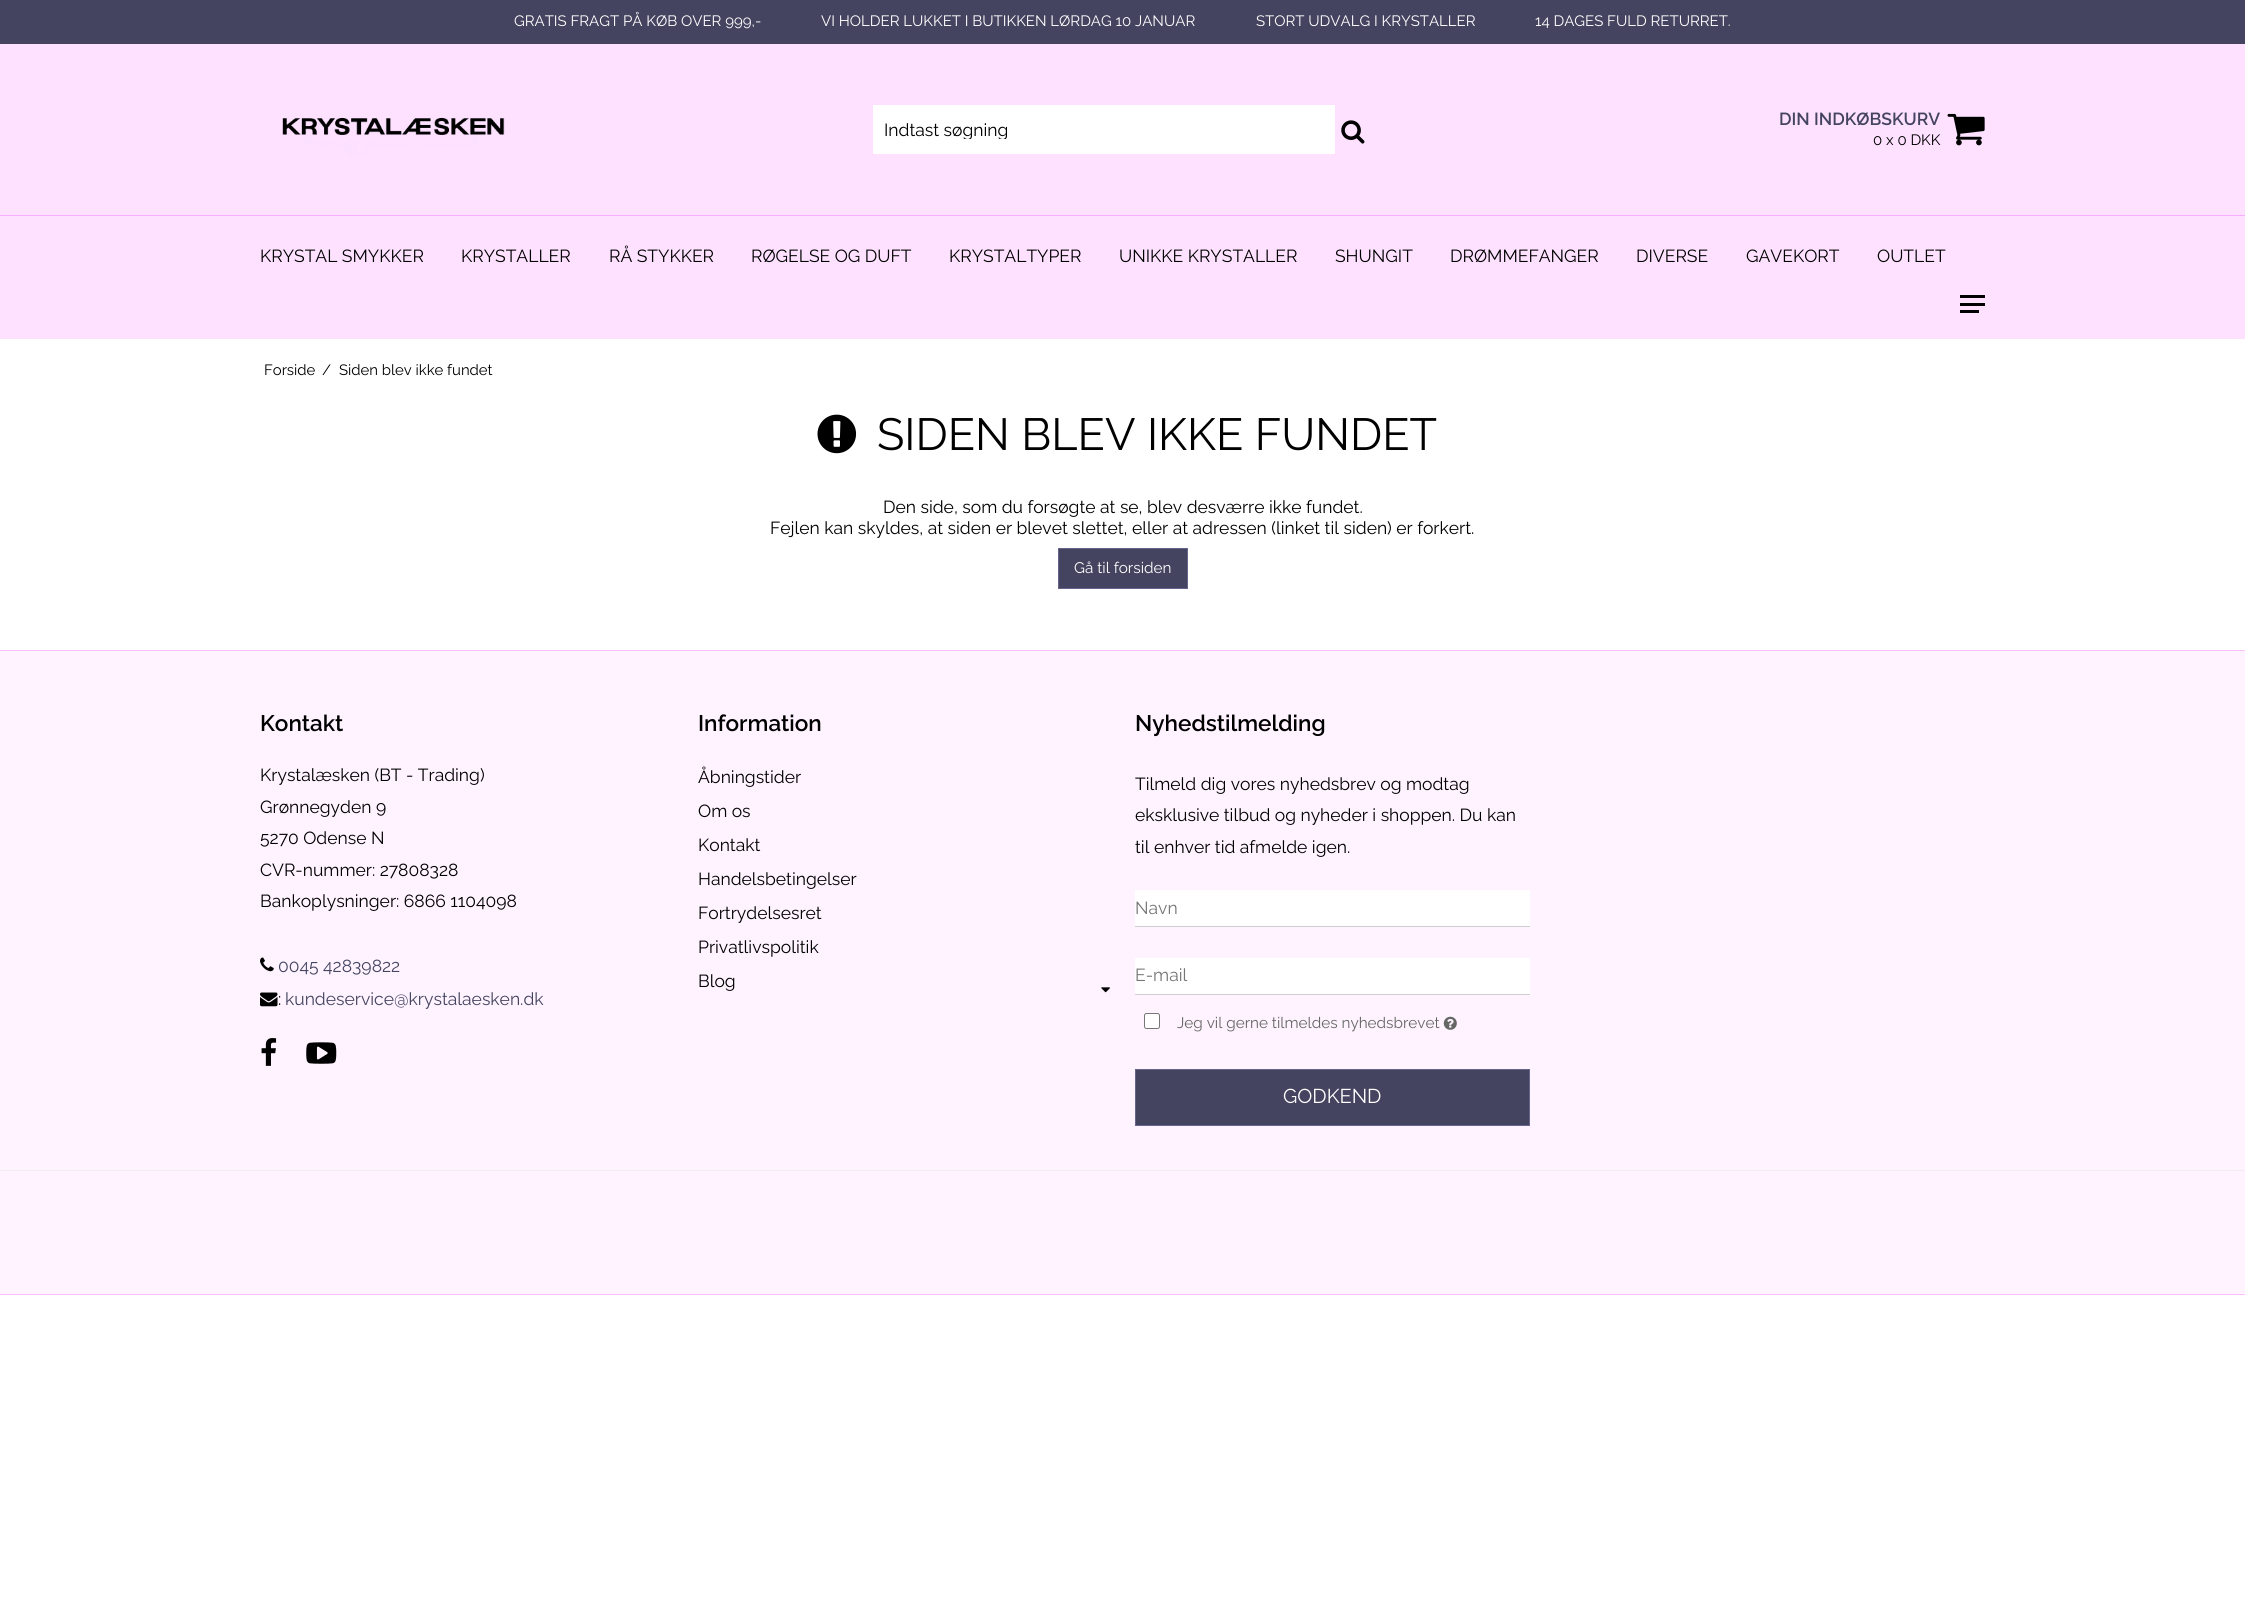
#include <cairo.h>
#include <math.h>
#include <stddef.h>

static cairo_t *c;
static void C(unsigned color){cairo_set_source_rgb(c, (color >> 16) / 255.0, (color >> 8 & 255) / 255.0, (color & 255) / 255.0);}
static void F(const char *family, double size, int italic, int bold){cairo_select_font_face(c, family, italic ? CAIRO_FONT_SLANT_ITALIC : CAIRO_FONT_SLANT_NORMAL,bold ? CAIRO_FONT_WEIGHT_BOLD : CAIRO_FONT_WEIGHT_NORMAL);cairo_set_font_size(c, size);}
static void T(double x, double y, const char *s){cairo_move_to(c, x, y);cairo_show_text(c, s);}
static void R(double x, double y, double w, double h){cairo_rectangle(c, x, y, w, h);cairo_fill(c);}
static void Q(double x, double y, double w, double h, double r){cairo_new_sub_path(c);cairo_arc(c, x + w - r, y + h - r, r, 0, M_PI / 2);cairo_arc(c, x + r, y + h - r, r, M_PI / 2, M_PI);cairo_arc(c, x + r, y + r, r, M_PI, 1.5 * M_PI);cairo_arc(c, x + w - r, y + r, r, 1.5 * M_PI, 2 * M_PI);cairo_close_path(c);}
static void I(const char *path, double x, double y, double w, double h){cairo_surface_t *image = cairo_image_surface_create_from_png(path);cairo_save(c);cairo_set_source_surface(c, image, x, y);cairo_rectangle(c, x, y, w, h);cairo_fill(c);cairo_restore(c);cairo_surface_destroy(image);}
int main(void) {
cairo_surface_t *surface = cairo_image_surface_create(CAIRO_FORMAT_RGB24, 2245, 1614);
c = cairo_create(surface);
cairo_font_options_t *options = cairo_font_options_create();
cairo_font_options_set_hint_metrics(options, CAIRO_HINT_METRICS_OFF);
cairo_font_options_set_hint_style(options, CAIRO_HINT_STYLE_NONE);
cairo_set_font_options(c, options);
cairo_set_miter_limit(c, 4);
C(0xffffff);
cairo_paint(c);
C(0x444460);
R(0,0,2245,44);
F("Raleway",15,0,0);
C(0xffffff);
T(514,26,"GRATIS FRAGT PÅ KØB OVER 999,-");
T(821,26,"VI HOLDER LUKKET I BUTIKKEN LØRDAG 10 JANUAR");
T(1256,26,"STORT UDVALG I KRYSTALLER");
T(1535,26,"14 DAGES FULD RETURRET.");
C(0xfde1ff);
R(0,44,2245,171);
I("1.png",282,117,223,39);
C(0xffffff);
R(873,105,462,49);
cairo_save(c);
cairo_rectangle(c,884,119,440,20);
cairo_clip(c);
F("Raleway",17.5,0,0);
C(0x000000);
T(884,136,"Indtast søgning");
cairo_restore(c);
I("2.png",1341,120,24,24);
F("Raleway SemiBold",17.5,0,0);
C(0x444460);
T(1779,125,"DIN INDKØBSKURV");
F("Raleway",15,0,0);
C(0x000000);
T(1873,145,"0 x 0 DKK");
I("3.png",1947,113,38,33);
C(0xfde1ff);
R(0,216,2245,123);
C(0xfaaeff);
R(0,215,2245,1);
F("Raleway",17.5,0,0);
C(0x000000);
T(260,262,"KRYSTAL SMYKKER");
T(461,262,"KRYSTALLER");
T(609,262,"RÅ STYKKER");
T(751,262,"RØGELSE OG DUFT");
T(949,262,"KRYSTALTYPER");
T(1119,262,"UNIKKE KRYSTALLER");
T(1335,262,"SHUNGIT");
T(1450,262,"DRØMMEFANGER");
T(1636,262,"DIVERSE");
T(1746,262,"GAVEKORT");
T(1877,262,"OUTLET");
R(1960,295,25,3);
R(1960,303,25,3);
R(1960,310,19,3);
F("Raleway",14.9,0,0);
T(264,375,"Forside");
T(322,375,"/");
T(339,375,"Siden blev ikke fundet");
I("4.png",817,414,40,40);
F("Raleway",45,0,0);
T(877,450,"SIDEN BLEV IKKE FUNDET");
F("Raleway",17.5,0,0);
T(883,513,"Den side, som du forsøgte at se, blev desværre ikke fundet.");
T(770,534,"Fejlen kan skyldes, at siden er blevet slettet, eller at adressen (linket til siden) er forkert.");
C(0x444460);
cairo_rectangle(c,1058.5,548.5,129,40);
cairo_fill_preserve(c);
C(0x64648d);
cairo_set_line_width(c,1);
cairo_stroke(c);
F("Raleway",15.3,0,0);
C(0xffffff);
T(1074,573,"Gå til forsiden");
C(0xfef3ff);
R(0,651,2245,643);
C(0xfac0ff);
R(0,650,2245,1);
R(0,1294,2245,1);
F("Raleway SemiBold",22.5,0,0);
C(0x000000);
T(260,731,"Kontakt");
F("Raleway",17.5,0,0);
T(260,781,"Krystalæsken (BT - Trading)");
T(260,813,"Grønnegyden 9");
T(260,844,"5270 Odense N");
T(260,876,"CVR-nummer: 27808328");
T(260,907,"Bankoplysninger: 6866 1104098");
I("5.png",260,957,14,15);
C(0x444460);
T(278,972,"0045 42839822");
I("6.png",260,992,18,15);
C(0x000000);
T(278,1005,":");
C(0x444460);
T(285,1005,"kundeservice@krystalaesken.dk");
I("7.png",261,1038,16,28);
I("8.png",306,1042,31,22);
F("Raleway SemiBold",22.5,0,0);
C(0x000000);
T(698,731,"Information");
F("Raleway",17.5,0,0);
T(698,783,"Åbningstider");
T(698,817,"Om os");
T(698,851,"Kontakt");
T(698,885,"Handelsbetingelser");
T(698,919,"Fortrydelsesret");
T(698,953,"Privatlivspolitik");
T(698,987,"Blog");
I("9.png",1101,987,9,6);
F("Raleway SemiBold",22.5,0,0);
T(1135,731,"Nyhedstilmelding");
F("Raleway",17.5,0,0);
T(1135,790,"Tilmeld dig vores nyhedsbrev og modtag");
T(1135,821,"eksklusive tilbud og nyheder i shoppen. Du kan");
T(1135,853,"til enhver tid afmelde igen.");
C(0xffffff);
R(1135,890,395,36);
C(0xcfcfcf);
R(1135,926,395,1);
C(0x757575);
T(1135,914,"Navn");
C(0xffffff);
R(1135,958,395,36);
C(0xcfcfcf);
R(1135,994,395,1);
C(0x757575);
T(1135,981,"E-mail");
C(0xffffff);
Q(1144.5,1013.5,15,15,2);
cairo_fill_preserve(c);
C(0x767676);
cairo_stroke(c);
F("Raleway",15.3,0,0);
C(0x656764);
T(1177,1028,"Jeg vil gerne tilmeldes nyhedsbrevet");
I("10.png",1443,1016,14,14);
C(0x444460);
cairo_rectangle(c,1135.5,1069.5,394,56);
cairo_fill_preserve(c);
C(0x64648d);
cairo_stroke(c);
F("Raleway",20,0,0);
C(0xffffff);
T(1283,1103,"GODKEND");
C(0xeeeeee);
R(0,1170,2245,1);
cairo_surface_write_to_png(surface, "o.png");
cairo_font_options_destroy(options);
cairo_destroy(c);
cairo_surface_destroy(surface);
return 0;
}
